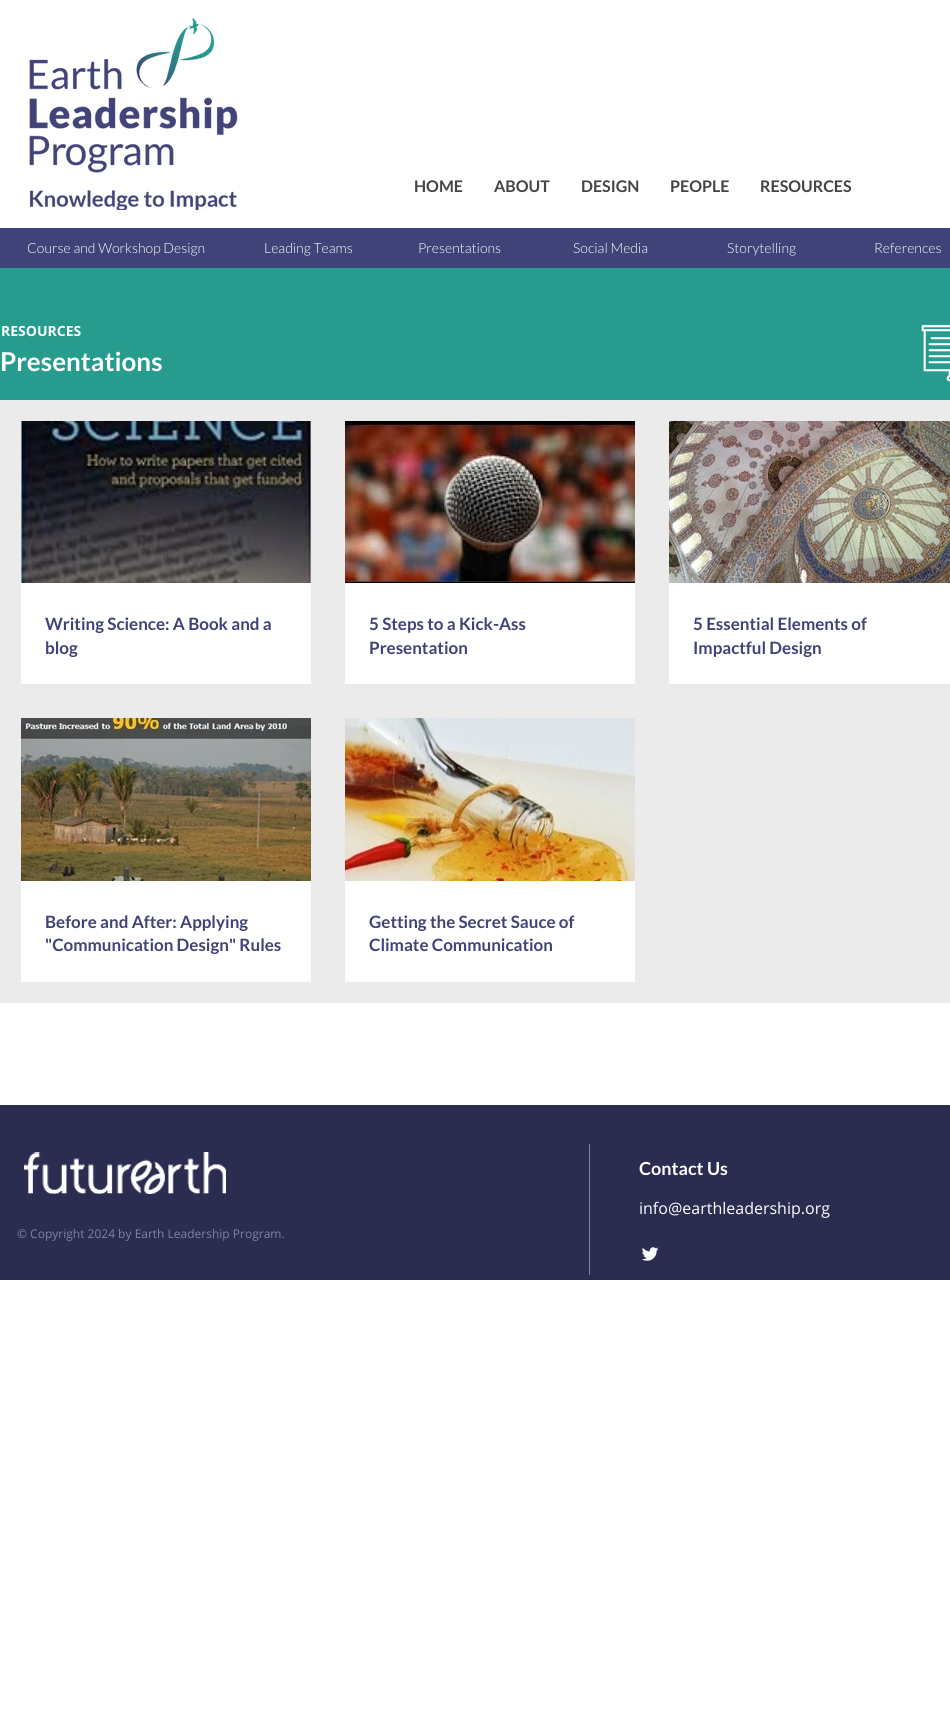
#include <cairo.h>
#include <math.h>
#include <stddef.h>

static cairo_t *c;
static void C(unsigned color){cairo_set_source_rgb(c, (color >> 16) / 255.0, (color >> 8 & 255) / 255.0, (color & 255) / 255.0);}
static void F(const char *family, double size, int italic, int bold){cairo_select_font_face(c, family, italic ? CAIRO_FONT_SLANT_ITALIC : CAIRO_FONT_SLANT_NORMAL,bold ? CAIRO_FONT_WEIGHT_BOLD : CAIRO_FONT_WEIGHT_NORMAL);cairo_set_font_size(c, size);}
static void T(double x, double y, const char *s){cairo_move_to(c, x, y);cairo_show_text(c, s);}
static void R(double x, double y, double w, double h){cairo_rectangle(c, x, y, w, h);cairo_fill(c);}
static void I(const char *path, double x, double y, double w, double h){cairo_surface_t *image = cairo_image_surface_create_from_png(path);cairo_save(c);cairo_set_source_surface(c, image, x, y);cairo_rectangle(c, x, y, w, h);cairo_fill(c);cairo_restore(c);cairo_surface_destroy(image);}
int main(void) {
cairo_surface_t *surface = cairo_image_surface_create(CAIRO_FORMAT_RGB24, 950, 1715);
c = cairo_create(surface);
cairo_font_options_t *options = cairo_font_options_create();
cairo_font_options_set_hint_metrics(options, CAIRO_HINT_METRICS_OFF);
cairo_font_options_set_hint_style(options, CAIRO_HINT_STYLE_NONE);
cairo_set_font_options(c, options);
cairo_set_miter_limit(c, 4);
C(0xffffff);
cairo_paint(c);
I("1.png",29,18,209,192);
F("Lato",16,0,1);
C(0x444444);
T(414,192,"HOME");
T(494,192,"ABOUT");
T(581,192,"DESIGN");
T(670,192,"PEOPLE");
T(760,192,"RESOURCES");
C(0x404378);
R(0,228,950,40);
F("Lato Light",14,0,0);
C(0xffffff);
T(27,253,"Course and Workshop Design");
T(264,253,"Leading Teams");
T(418,253,"Presentations");
T(573,253,"Social Media");
T(727,253,"Storytelling");
T(874,253,"References");
C(0x279b8e);
R(0,268,950,132);
F("Open Sans",14,0,1);
C(0xffffff);
T(1,336,"RESOURCES");
I("2.png",921,324,29,58);
F("Lato",26,0,1);
T(0,371,"Presentations");
C(0xebebeb);
R(0,400,950,603);
I("3.png",21,421,290,162);
C(0xffffff);
R(21,583,290,101);
F("Lato",17,0,1);
C(0x404378);
T(45,630,"Writing Science: A Book and a");
T(45,654,"blog");
I("4.png",345,421,290,162);
C(0xffffff);
R(345,583,290,101);
C(0x404378);
T(369,630,"5 Steps to a Kick-Ass");
T(369,654,"Presentation");
I("5.png",669,421,281,162);
C(0xffffff);
R(669,583,281,101);
C(0x404378);
T(693,630,"5 Essential Elements of");
T(693,654,"Impactful Design");
I("6.png",21,718,290,163);
C(0xffffff);
R(21,881,290,101);
C(0x404378);
T(45,928,"Before and After: Applying");
T(45,951,"\"Communication Design\" Rules");
I("7.png",345,718,290,163);
C(0xffffff);
R(345,881,290,101);
C(0x404378);
T(369,928,"Getting the Secret Sauce of");
T(369,951,"Climate Communication");
C(0x2b2d50);
R(0,1105,950,175);
I("8.png",24,1152,202,42);
C(0x7e81a5);
R(589,1144,1,131);
F("Lato",18,0,1);
C(0xffffff);
T(639,1175,"Contact Us");
F("Open Sans",16,0,0);
T(639,1214,"info@earthleadership.org");
F("Open Sans",12,0,0);
C(0x7e81a5);
T(17,1238,"© Copyright 2024 by Earth Leadership Program.");
I("9.png",642,1247,17,14);
cairo_surface_write_to_png(surface, "o.png");
cairo_font_options_destroy(options);
cairo_destroy(c);
cairo_surface_destroy(surface);
return 0;
}
